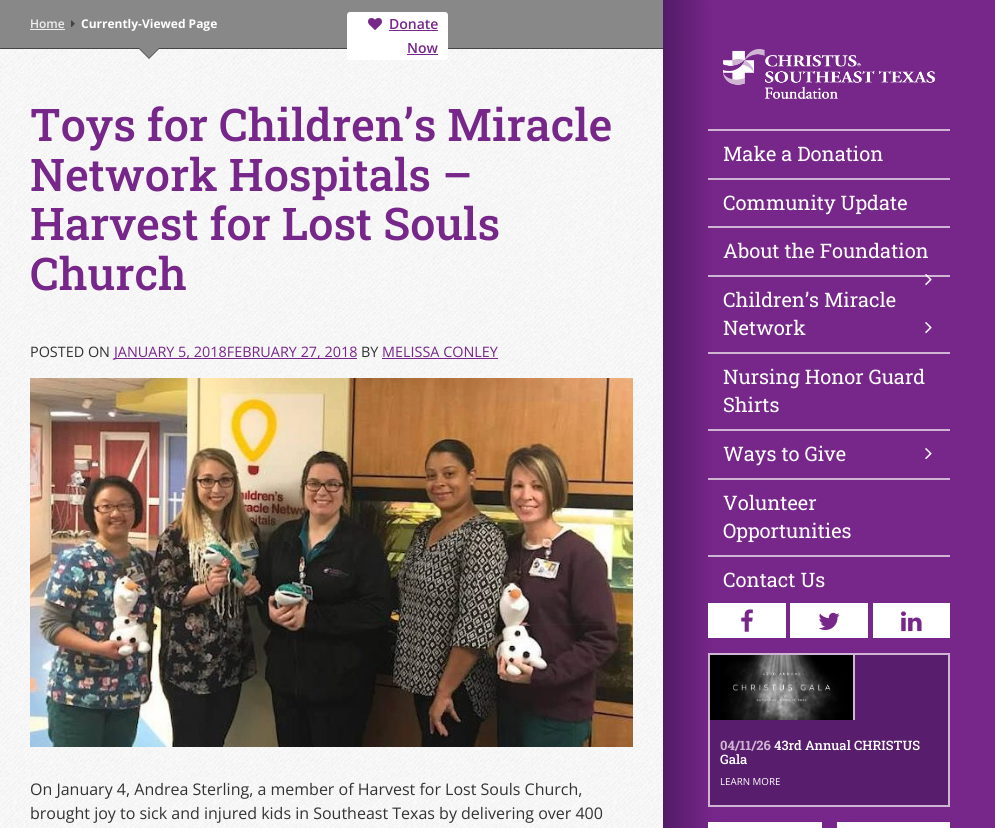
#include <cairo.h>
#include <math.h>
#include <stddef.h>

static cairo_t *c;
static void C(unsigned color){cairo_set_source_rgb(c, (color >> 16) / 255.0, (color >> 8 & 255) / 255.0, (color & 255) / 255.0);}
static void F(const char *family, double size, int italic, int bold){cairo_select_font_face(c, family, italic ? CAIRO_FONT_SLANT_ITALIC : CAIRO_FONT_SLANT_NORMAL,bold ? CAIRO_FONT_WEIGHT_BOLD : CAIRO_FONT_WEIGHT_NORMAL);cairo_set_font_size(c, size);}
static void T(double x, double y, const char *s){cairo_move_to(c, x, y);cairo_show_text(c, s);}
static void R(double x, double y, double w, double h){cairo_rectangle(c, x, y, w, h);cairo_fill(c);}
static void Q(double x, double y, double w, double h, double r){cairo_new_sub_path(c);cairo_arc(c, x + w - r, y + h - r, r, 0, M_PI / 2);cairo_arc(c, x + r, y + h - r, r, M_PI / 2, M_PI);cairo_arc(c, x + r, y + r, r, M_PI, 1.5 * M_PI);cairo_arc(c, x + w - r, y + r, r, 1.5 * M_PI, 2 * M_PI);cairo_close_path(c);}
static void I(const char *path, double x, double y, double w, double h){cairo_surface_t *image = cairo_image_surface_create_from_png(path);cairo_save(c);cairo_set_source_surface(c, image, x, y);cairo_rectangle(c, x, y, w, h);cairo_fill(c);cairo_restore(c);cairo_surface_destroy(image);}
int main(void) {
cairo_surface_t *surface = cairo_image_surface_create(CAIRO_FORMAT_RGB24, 995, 828);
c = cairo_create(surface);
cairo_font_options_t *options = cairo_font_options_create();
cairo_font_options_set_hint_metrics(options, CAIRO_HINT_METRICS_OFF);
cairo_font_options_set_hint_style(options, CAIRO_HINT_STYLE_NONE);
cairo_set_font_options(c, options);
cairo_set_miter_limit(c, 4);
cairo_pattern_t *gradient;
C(0x888888);
cairo_paint(c);
C(0x444444);
R(0,48,663,1);
F("Open Sans SemiBold",12,0,0);
C(0xeeeeee);
T(30,28,"Home");
R(30,29,35,1);
I("1.png",71,20,4,7);
F("Open Sans",12,0,1);
C(0xffffff);
T(81,28,"Currently-Viewed Page");
I("3.png",0,49,663,779);
C(0x444444);
cairo_new_path(c);
cairo_move_to(c,138,48);
cairo_line_to(c,160,48);
cairo_line_to(c,149,59);
cairo_close_path(c);
cairo_fill(c);
C(0x888888);
cairo_new_path(c);
cairo_move_to(c,139,48);
cairo_line_to(c,159,48);
cairo_line_to(c,149,58);
cairo_close_path(c);
cairo_fill(c);
C(0xffffff);
Q(347,12,101,48,3);
cairo_fill(c);
I("2.png",368,18,14,12);
F("Open Sans SemiBold",14,0,0);
C(0x77268a);
T(389,29,"Donate");
R(389,30,49,1);
T(407,53,"Now");
R(407,54,31,1);
gradient = cairo_pattern_create_linear(663,25,995,24);
cairo_pattern_add_color_stop_rgba(gradient,0,0.322,0.106,0.4,1);
cairo_pattern_add_color_stop_rgba(gradient,.15,0.467,0.149,0.541,1);
cairo_pattern_add_color_stop_rgba(gradient,1,0.467,0.149,0.541,1);
cairo_set_source(c,gradient);
cairo_pattern_destroy(gradient);
R(663,0,332,49);
F("Roboto Slab Medium",45,0,0);
C(0x77268a);
T(30,141,"Toys for Children’s Miracle");
T(30,191,"Network Hospitals –");
T(30,240,"Harvest for Lost Souls");
T(30,290,"Church");
F("Open Sans",14.4,0,0);
C(0x333333);
T(30,357,"POSTED ON");
C(0x77268a);
R(114,358,243,1);
T(114,357,"JANUARY 5, 2018FEBRUARY 27, 2018");
C(0x333333);
T(361,357,"BY");
C(0x77268a);
T(382,357,"MELISSA CONLEY");
R(382,358,116,1);
I("4.png",30,378,603,369);
F("Open Sans",16,0,0);
C(0x333333);
T(30,795,"On January 4, Andrea Sterling, a member of Harvest for Lost Souls Church,");
T(30,819,"brought joy to sick and injured kids in Southeast Texas by delivering over 400");
gradient = cairo_pattern_create_linear(663,581,995,581);
cairo_pattern_add_color_stop_rgba(gradient,0,0.322,0.106,0.4,1);
cairo_pattern_add_color_stop_rgba(gradient,.15,0.467,0.149,0.541,1);
cairo_pattern_add_color_stop_rgba(gradient,1,0.467,0.149,0.541,1);
cairo_set_source(c,gradient);
cairo_pattern_destroy(gradient);
R(663,49,332,779);
C(0xd0b4d3);
R(708,129,242,2);
I("5.png",723,49,212,50);
R(708,178,242,2);
F("Roboto Slab",20,0,0);
C(0xffffff);
T(723,161,"Make a Donation");
C(0xd0b4d3);
R(708,226,242,2);
C(0xffffff);
T(723,210,"Community Update");
C(0xd0b4d3);
R(708,275,242,2);
C(0xffffff);
T(723,258,"About the Foundation");
I("6.png",925,274,7,12);
C(0xd0b4d3);
R(708,352,242,2);
C(0xffffff);
T(723,307,"Children’s Miracle");
T(723,335,"Network");
I("7.png",925,322,7,12);
C(0xd0b4d3);
R(708,429,242,2);
C(0xffffff);
T(723,384,"Nursing Honor Guard");
T(723,412,"Shirts");
C(0xd0b4d3);
R(708,478,242,2);
C(0xffffff);
T(723,461,"Ways to Give");
I("7.png",925,448,7,12);
C(0xd0b4d3);
R(708,555,242,2);
C(0xffffff);
T(723,510,"Volunteer");
T(723,538,"Opportunities");
T(723,587,"Contact Us");
R(708,603,78,35);
I("8.png",741,609,12,23);
R(790,603,78,35);
I("9.png",818,612,22,18);
R(873,603,77,35);
I("10.png",901,611,21,21);
C(0x581d6c);
cairo_rectangle(c,709,654,240,152);
cairo_fill_preserve(c);
C(0xd0b4d3);
cairo_stroke(c);
R(853,655,2,65);
I("11.png",710,655,143,65);
F("Roboto Slab",13,0,1);
T(720,750,"04/11/26");
F("Roboto Slab Medium",13,0,0);
C(0xffffff);
T(774,750,"43rd Annual CHRISTUS");
T(720,764,"Gala");
F("Open Sans",9.75,0,0);
T(720,785,"LEARN MORE");
R(708,822,114,6);
R(837,822,113,6);
cairo_surface_write_to_png(surface, "o.png");
cairo_font_options_destroy(options);
cairo_destroy(c);
cairo_surface_destroy(surface);
return 0;
}
